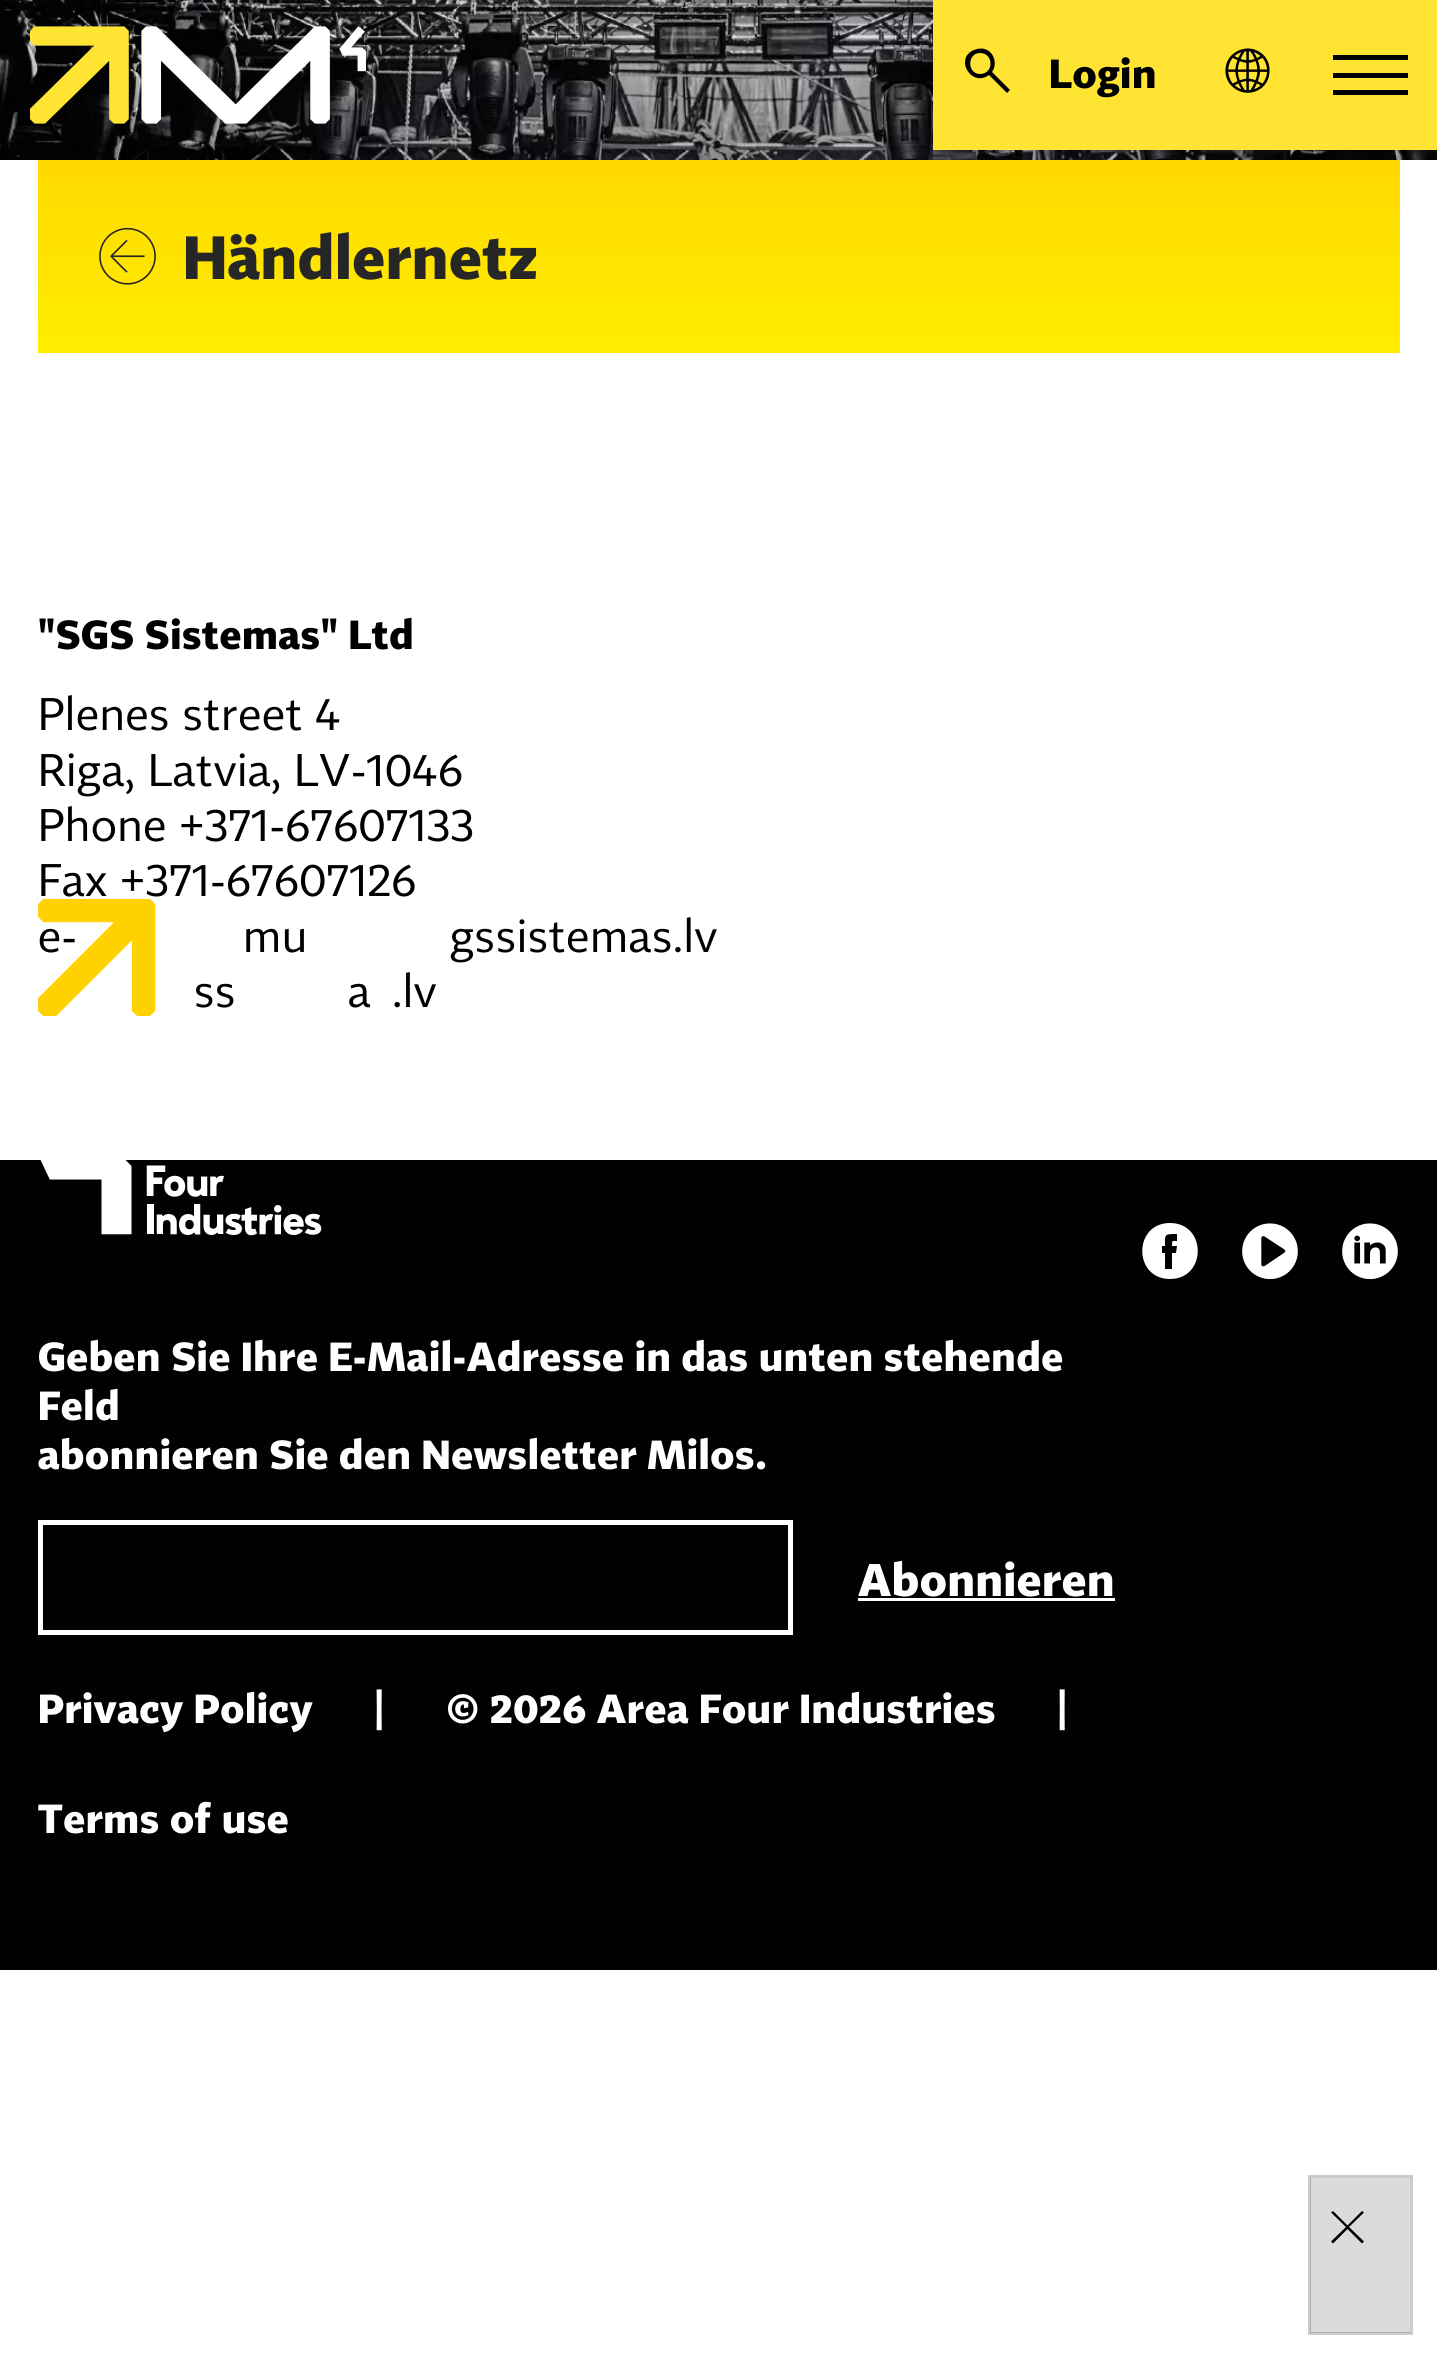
#include <cairo.h>
#include <math.h>
#include <stddef.h>

static cairo_t *c;
static void C(unsigned color){cairo_set_source_rgb(c, (color >> 16) / 255.0, (color >> 8 & 255) / 255.0, (color & 255) / 255.0);}
static void F(const char *family, double size, int italic, int bold){cairo_select_font_face(c, family, italic ? CAIRO_FONT_SLANT_ITALIC : CAIRO_FONT_SLANT_NORMAL,bold ? CAIRO_FONT_WEIGHT_BOLD : CAIRO_FONT_WEIGHT_NORMAL);cairo_set_font_size(c, size);}
static void L(double x, double y, const char *s, double letter, double word){cairo_move_to(c, x, y);while (*s) {char ch[5] = {0};int n = 0;do ch[n++] = *s++; while ((*s & 0xC0) == 0x80);cairo_show_text(c, ch);cairo_rel_move_to(c, letter + word * (*ch == ' '), 0);}}
static void R(double x, double y, double w, double h){cairo_rectangle(c, x, y, w, h);cairo_fill(c);}
static void I(const char *path, double x, double y, double w, double h){cairo_surface_t *image = cairo_image_surface_create_from_png(path);cairo_save(c);cairo_set_source_surface(c, image, x, y);cairo_rectangle(c, x, y, w, h);cairo_fill(c);cairo_restore(c);cairo_surface_destroy(image);}
int main(void) {
cairo_surface_t *surface = cairo_image_surface_create(CAIRO_FORMAT_RGB24, 1437, 2360);
c = cairo_create(surface);
cairo_font_options_t *options = cairo_font_options_create();
cairo_font_options_set_hint_metrics(options, CAIRO_HINT_METRICS_OFF);
cairo_font_options_set_hint_style(options, CAIRO_HINT_STYLE_NONE);
cairo_set_font_options(c, options);
cairo_set_miter_limit(c, 4);
cairo_pattern_t *gradient;
C(0xffffff);
cairo_paint(c);
I("3.png",0,0,1437,160);
I("1.png",30,26,336,98);
C(0xffe433);
R(933,0,504,150);
C(0x000000);
cairo_new_path(c);
cairo_move_to(c,1010,90);
cairo_line_to(c,992,72);
cairo_curve_to(c,997,65,995,54,987,50);
cairo_curve_to(c,983,48,979,48,974,50);
cairo_curve_to(c,954,58,971,88,989,75);
cairo_line_to(c,1007,93);
cairo_close_path(c);
cairo_move_to(c,980,74);
cairo_curve_to(c,967,74,967,53,980,53);
cairo_curve_to(c,994,53,994,74,980,74);
cairo_close_path(c);
cairo_fill(c);
F("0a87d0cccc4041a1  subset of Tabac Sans",40,0,1);
L(1049,88,"Login",.62,0);
I("2.png",1225,48,45,45);
R(1333,73,75,5);
R(1333,55,75,5);
R(1333,90,75,5);
gradient = cairo_pattern_create_linear(719,160,719,353);
cairo_pattern_add_color_stop_rgba(gradient,0,1,0.851,0,1);
cairo_pattern_add_color_stop_rgba(gradient,1,1,0.929,0,1);
cairo_set_source(c,gradient);
cairo_pattern_destroy(gradient);
R(38,160,1362,193);
I("4.png",99,227,57,58);
F("0a87d0cccc4041a1  subset of Tabac Sans",60,0,1);
C(0x262626);
L(183,279,"Händlernetz",.62,0);
F("0a87d0cccc4041a1  subset of Tabac Sans",40,0,1);
C(0x000000);
L(38,649,"\"SGS Sistemas\" Ltd",.62,0);
F("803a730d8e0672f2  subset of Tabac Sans",45,0,0);
L(38,730,"Plenes street 4",.62,0);
L(38,786,"Riga, Latvia, LV-1046",.62,0);
L(38,841,"Phone +371-67607133",.62,0);
L(38,896,"Fax +371-67607126",.62,0);
L(38,952,"e-",.62,0);
L(243,952,"mu",.62,0);
L(450,952,"gssistemas.lv",.62,0);
L(194,1007,"ss",.62,0);
L(348,1007,"as.lv",.62,0);
C(0xdbdbdb);
R(1310,2178,100,155);
cairo_rectangle(c,1309.5,2176.5,102,157);
cairo_set_source_rgba(c,0,0,0,0.2);
cairo_set_line_width(c,3);
cairo_stroke(c);
C(0x000000);
cairo_new_path(c);
cairo_move_to(c,1364,2212.5);
cairo_line_to(c,1362,2211);
cairo_line_to(c,1347.5,2225.5);
cairo_line_to(c,1333,2211);
cairo_line_to(c,1331,2212.5);
cairo_line_to(c,1346,2227);
cairo_line_to(c,1331,2241.5);
cairo_line_to(c,1333,2243.5);
cairo_line_to(c,1347.5,2229);
cairo_line_to(c,1362,2243.5);
cairo_line_to(c,1364,2241.5);
cairo_line_to(c,1349,2227);
cairo_close_path(c);
cairo_fill(c);
C(0x010101);
R(0,1160,1437,810);
I("5.png",38,898,399,119);
I("6.png",40,1160,282,76);
C(0xffffff);
cairo_new_path(c);
cairo_move_to(c,1170,1223);
cairo_curve_to(c,1133,1223,1133,1279,1170,1279);
cairo_curve_to(c,1207,1279,1207,1223,1170,1223);
cairo_close_path(c);
cairo_move_to(c,1177,1241);
cairo_curve_to(c,1172,1241,1172,1240,1172,1246);
cairo_line_to(c,1177,1246);
cairo_line_to(c,1176,1253);
cairo_line_to(c,1172,1253);
cairo_line_to(c,1172,1269);
cairo_line_to(c,1165,1269);
cairo_line_to(c,1165,1253);
cairo_line_to(c,1162,1253);
cairo_line_to(c,1162,1246);
cairo_line_to(c,1165,1246);
cairo_curve_to(c,1165,1234,1164,1234,1177,1234);
cairo_close_path(c);
cairo_fill(c);
I("7.png",1242,1223,56,57);
I("8.png",1342,1223,56,57);
F("0a87d0cccc4041a1  subset of Tabac Sans",40,0,1);
L(38,1371,"Geben Sie Ihre E-Mail-Adresse in das unten stehende",.62,0);
L(38,1420,"Feld",.62,0);
L(38,1469,"abonnieren Sie den Newsletter Milos.",.62,0);
cairo_rectangle(c,40.5,1522.5,750,110);
cairo_set_line_width(c,5);
cairo_stroke(c);
F("0a87d0cccc4041a1  subset of Tabac Sans",45,0,1);
L(858,1596,"Abonnieren",.62,0);
R(858,1598,257,3);
F("0a87d0cccc4041a1  subset of Tabac Sans",40,0,1);
L(38,1723,"Privacy Policy",.62,0);
L(373,1723,"|",.62,0);
L(446,1723,"© 2026 Area Four Industries",.62,0);
L(1056,1723,"|",.62,0);
L(38,1833,"Terms of use",.62,0);
cairo_surface_write_to_png(surface, "o.png");
cairo_font_options_destroy(options);
cairo_destroy(c);
cairo_surface_destroy(surface);
return 0;
}
